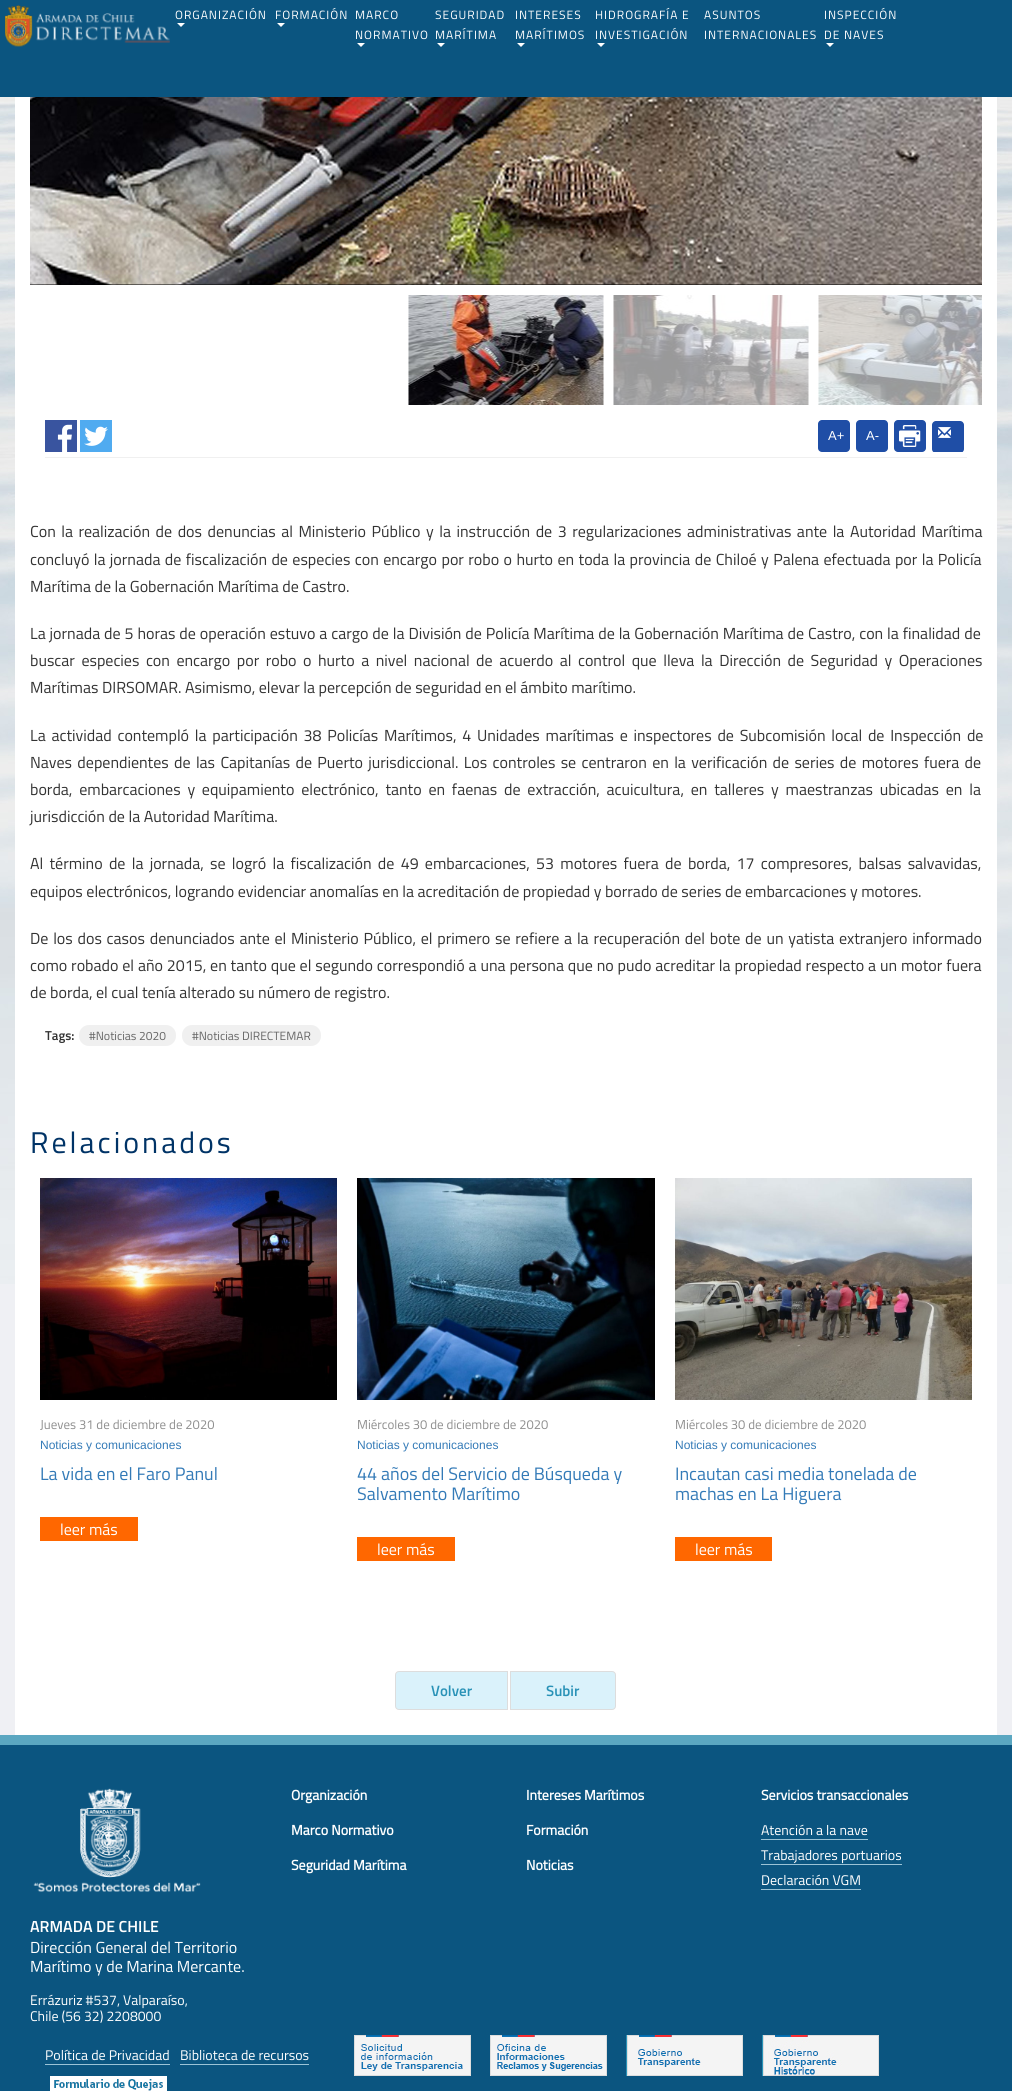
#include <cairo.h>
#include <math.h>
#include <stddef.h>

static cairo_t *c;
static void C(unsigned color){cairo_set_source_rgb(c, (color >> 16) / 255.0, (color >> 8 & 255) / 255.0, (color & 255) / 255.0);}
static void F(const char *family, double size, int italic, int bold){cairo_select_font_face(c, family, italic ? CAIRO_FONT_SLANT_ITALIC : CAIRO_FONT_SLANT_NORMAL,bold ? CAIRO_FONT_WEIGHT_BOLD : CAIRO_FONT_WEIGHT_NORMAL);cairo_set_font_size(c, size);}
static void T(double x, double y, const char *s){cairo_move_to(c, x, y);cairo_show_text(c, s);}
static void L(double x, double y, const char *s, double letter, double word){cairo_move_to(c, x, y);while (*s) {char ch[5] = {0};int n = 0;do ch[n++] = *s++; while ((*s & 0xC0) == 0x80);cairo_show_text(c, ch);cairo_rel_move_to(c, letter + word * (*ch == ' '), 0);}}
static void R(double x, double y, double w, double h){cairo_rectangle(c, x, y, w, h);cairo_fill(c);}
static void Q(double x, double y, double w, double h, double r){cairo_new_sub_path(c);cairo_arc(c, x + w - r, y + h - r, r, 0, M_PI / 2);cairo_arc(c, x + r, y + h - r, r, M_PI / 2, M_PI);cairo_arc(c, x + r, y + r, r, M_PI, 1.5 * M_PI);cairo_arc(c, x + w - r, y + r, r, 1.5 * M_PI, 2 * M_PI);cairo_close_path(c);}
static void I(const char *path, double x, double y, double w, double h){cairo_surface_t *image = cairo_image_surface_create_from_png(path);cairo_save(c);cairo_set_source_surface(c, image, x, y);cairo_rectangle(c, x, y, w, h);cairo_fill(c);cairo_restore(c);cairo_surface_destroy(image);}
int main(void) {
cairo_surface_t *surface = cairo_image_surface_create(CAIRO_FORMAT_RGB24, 1012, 2091);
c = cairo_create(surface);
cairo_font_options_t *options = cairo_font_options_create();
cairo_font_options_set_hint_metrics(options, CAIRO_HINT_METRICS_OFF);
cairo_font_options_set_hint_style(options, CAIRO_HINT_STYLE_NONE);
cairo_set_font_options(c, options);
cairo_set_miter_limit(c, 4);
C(0xeff0f4);
cairo_paint(c);
I("1.png",0,97,1012,1187);
C(0x0b5580);
R(0,0,1012,97);
I("2.png",5,5,165,42);
F("Titillium Web",12,0,0);
C(0xffffff);
L(175,19,"ORGANIZACIÓN",1,0);
cairo_new_path(c);
cairo_move_to(c,177,23);
cairo_line_to(c,185,23);
cairo_line_to(c,181,27);
cairo_close_path(c);
cairo_fill(c);
L(275,19,"FORMACIÓN",1,0);
cairo_new_path(c);
cairo_move_to(c,277,23);
cairo_line_to(c,285,23);
cairo_line_to(c,281,27);
cairo_close_path(c);
cairo_fill(c);
L(355,19,"MARCO",1,0);
L(355,39,"NORMATIVO",1,0);
cairo_new_path(c);
cairo_move_to(c,357,43);
cairo_line_to(c,365,43);
cairo_line_to(c,361,47);
cairo_close_path(c);
cairo_fill(c);
L(435,19,"SEGURIDAD",1,0);
L(435,39,"MARÍTIMA",1,0);
cairo_new_path(c);
cairo_move_to(c,437,43);
cairo_line_to(c,445,43);
cairo_line_to(c,441,47);
cairo_close_path(c);
cairo_fill(c);
L(515,19,"INTERESES",1,0);
L(515,39,"MARÍTIMOS",1,0);
cairo_new_path(c);
cairo_move_to(c,517,43);
cairo_line_to(c,525,43);
cairo_line_to(c,521,47);
cairo_close_path(c);
cairo_fill(c);
L(595,19,"HIDROGRAFÍA E",1,0);
L(595,39,"INVESTIGACIÓN",1,0);
cairo_new_path(c);
cairo_move_to(c,597,43);
cairo_line_to(c,605,43);
cairo_line_to(c,601,47);
cairo_close_path(c);
cairo_fill(c);
L(704,19,"ASUNTOS",1,0);
L(704,39,"INTERNACIONALES",1,0);
L(824,19,"INSPECCIÓN",1,0);
L(824,39,"DE NAVES",1,0);
cairo_new_path(c);
cairo_move_to(c,826,43);
cairo_line_to(c,834,43);
cairo_line_to(c,830,47);
cairo_close_path(c);
cairo_fill(c);
R(15,97,982,1638);
I("3.png",30,97,952,188);
cairo_set_source_rgba(c,0,0,0,0.5);
R(30,284,952,1);
I("4.png",408,295,196,110);
I("5.png",613,295,196,110);
I("6.png",818,295,164,110);
C(0xf0f0f0);
R(45,457,922,1);
I("7.png",45,420,32,32);
I("8.png",80,420,32,32);
C(0x1f4ea6);
Q(818,420,32,32,4);
cairo_fill(c);
F("Liberation Sans",13,0,0);
C(0xffffff);
T(828,440,"A+");
C(0x1f4ea6);
Q(856,420,32,32,4);
cairo_fill(c);
C(0xffffff);
T(866,440,"A-");
C(0x1f4ea6);
Q(894,420,32,32,4);
cairo_fill(c);
I("9.png",899,425,22,22);
cairo_save(c);
cairo_rectangle(c,815,420,152,32);
cairo_clip(c);
Q(932,421,32,32,4);
cairo_fill(c);
cairo_restore(c);
I("10.png",938,427,13,11);
F("Titillium Web",16,0,0);
C(0x333333);
L(30,537,"Con la realización de dos denuncias al Ministerio Público y la instrucción de 3 regularizaciones administrativas ante la Autoridad Marítima",0,2);
L(30,565,"concluyó la jornada de fiscalización de especies con encargo por robo o hurto en toda la provincia de Chiloé y Palena efectuada por la Policía",0,.9);
T(30,592,"Marítima de la Gobernación Marítima de Castro.");
L(30,639,"La jornada de 5 horas de operación estuvo a cargo de la División de Policía Marítima de la Gobernación Marítima de Castro, con la finalidad de",0,.4);
L(30,666,"buscar especies con encargo por robo o hurto a nivel nacional de acuerdo al control que lleva la Dirección de Seguridad y Operaciones",0,3);
T(30,693,"Marítimas DIRSOMAR. Asimismo, elevar la percepción de seguridad en el ámbito marítimo.");
L(30,741,"La actividad contempló la participación 38 Policías Marítimos, 4 Unidades marítimas e inspectores de Subcomisión local de Inspección de",0,2.25);
L(30,768,"Naves dependientes de las Capitanías de Puerto jurisdiccional. Los controles se centraron en la verificación de series de motores fuera de",0,1.8);
L(30,795,"borda, embarcaciones y equipamiento electrónico, tanto en faenas de extracción, acuicultura, en talleres y maestranzas ubicadas en la",0,3.25);
T(30,822,"jurisdicción de la Autoridad Marítima.");
L(30,869,"Al término de la jornada, se logró la fiscalización de 49 embarcaciones, 53 motores fuera de borda, 17 compresores, balsas salvavidas,",0,2.75);
T(30,897,"equipos electrónicos, logrando evidenciar anomalías en la acreditación de propiedad y borrado de series de embarcaciones y motores.");
L(30,944,"De los dos casos denunciados ante el Ministerio Público, el primero se refiere a la recuperación del bote de un yatista extranjero informado",0,1.25);
L(30,971,"como robado el año 2015, en tanto que el segundo correspondió a una persona que no pudo acreditar la propiedad respecto a un motor fuera",0,.35);
T(30,998,"de borda, el cual tenía alterado su número de registro.");
F("Titillium Web SemiBold",13,0,0);
T(45,1040,"Tags:");
C(0xf0f0f0);
Q(79,1025,97,21,10);
cairo_fill(c);
F("Titillium Web",12,0,0);
C(0x666666);
T(89,1040,"#Noticias 2020");
C(0xf0f0f0);
Q(182,1025,139,21,10);
cairo_fill(c);
C(0x666666);
T(192,1040,"#Noticias DIRECTEMAR");
F("Titillium Web",30,0,0);
C(0x003366);
L(30,1153,"Relacionados",3,0);
I("11.png",40,1178,297,222);
F("Titillium Web",13,0,0);
C(0x8e8e8e);
T(40,1429,"Jueves 31 de diciembre de 2020");
F("Liberation Sans",12,0,0);
C(0x337ab7);
T(40,1449,"Noticias y comunicaciones");
F("Titillium Web",18,0,0);
T(40,1480,"La vida en el Faro Panul");
C(0xff6700);
R(40,1517,98,24);
F("Titillium Web",16,0,0);
C(0xffffff);
T(60,1535,"leer más");
I("12.png",357,1178,298,222);
F("Titillium Web",13,0,0);
C(0x8e8e8e);
T(357,1429,"Miércoles 30 de diciembre de 2020");
F("Liberation Sans",12,0,0);
C(0x337ab7);
T(357,1449,"Noticias y comunicaciones");
F("Titillium Web",18,0,0);
T(357,1480,"44 años del Servicio de Búsqueda y");
T(357,1500,"Salvamento Marítimo");
C(0xff6700);
R(357,1537,98,24);
F("Titillium Web",16,0,0);
C(0xffffff);
T(377,1555,"leer más");
I("13.png",675,1178,297,222);
F("Titillium Web",13,0,0);
C(0x8e8e8e);
T(675,1429,"Miércoles 30 de diciembre de 2020");
F("Liberation Sans",12,0,0);
C(0x337ab7);
T(675,1449,"Noticias y comunicaciones");
F("Titillium Web",18,0,0);
T(675,1480,"Incautan casi media tonelada de");
T(675,1500,"machas en La Higuera");
C(0xff6700);
R(675,1537,97,24);
F("Titillium Web",16,0,0);
C(0xffffff);
T(695,1555,"leer más");
C(0xdaf2fb);
cairo_new_path(c);
cairo_move_to(c,399,1671.5);
cairo_line_to(c,507.5,1671.5);
cairo_line_to(c,507.5,1709.5);
cairo_line_to(c,399,1709.5);
cairo_curve_to(c,397,1709.5,395.5,1708,395.5,1706);
cairo_line_to(c,395.5,1675);
cairo_curve_to(c,395.5,1673,397,1671.5,399,1671.5);
cairo_close_path(c);
cairo_fill_preserve(c);
C(0xdddddd);
cairo_set_line_width(c,1);
cairo_stroke(c);
F("Titillium Web SemiBold",15,0,0);
C(0x2992b7);
T(431,1696,"Volver");
C(0xdaf2fb);
cairo_new_path(c);
cairo_move_to(c,510.5,1671.5);
cairo_line_to(c,612,1671.5);
cairo_curve_to(c,614,1671.5,615.5,1673,615.5,1675);
cairo_line_to(c,615.5,1706);
cairo_curve_to(c,615.5,1708,614,1709.5,612,1709.5);
cairo_line_to(c,510.5,1709.5);
cairo_close_path(c);
cairo_fill_preserve(c);
C(0xdddddd);
cairo_stroke(c);
C(0x2992b7);
T(546,1696,"Subir");
C(0x0b5580);
R(0,1745,1012,346);
C(0x5ba7c1);
R(0,1735,1012,10);
F("Titillium Web",14,0,1);
C(0xffffff);
T(291,1800,"Organización");
T(291,1835,"Marco Normativo");
T(291,1870,"Seguridad Marítima");
T(526,1800,"Intereses Marítimos");
T(526,1835,"Formación");
T(526,1870,"Noticias");
T(761,1800,"Servicios transaccionales");
F("Titillium Web",14,0,0);
T(761,1835,"Atención a la nave");
C(0x9bc3d6);
R(761,1839,107,1);
C(0xffffff);
T(761,1860,"Trabajadores portuarios");
C(0x9bc3d6);
R(761,1864,141,1);
C(0xffffff);
T(761,1885,"Declaración VGM");
C(0x9bc3d6);
R(761,1889,100,1);
I("14.png",33,1788,168,104);
F("Titillium Web SemiBold",16,0,0);
C(0xffffff);
T(30,1932,"ARMADA DE CHILE");
F("Titillium Web",16,0,0);
T(30,1953,"Dirección General del Territorio");
T(30,1972,"Marítimo y de Marina Mercante.");
F("Titillium Web",14,0,0);
T(30,2005,"Errázuriz #537, Valparaíso,");
T(30,2021,"Chile (56 32) 2208000");
T(45,2060,"Política de Privacidad");
C(0x9bc3d6);
R(45,2064,125,1);
C(0xffffff);
T(180,2060,"Biblioteca de recursos");
C(0x9bc3d6);
R(180,2064,129,1);
I("15.png",354,2035,117,41);
I("16.png",490,2035,117,41);
I("17.png",626,2035,117,41);
I("18.png",762,2035,117,41);
I("19.png",50,2076,117,15);
cairo_surface_write_to_png(surface, "o.png");
cairo_font_options_destroy(options);
cairo_destroy(c);
cairo_surface_destroy(surface);
return 0;
}
